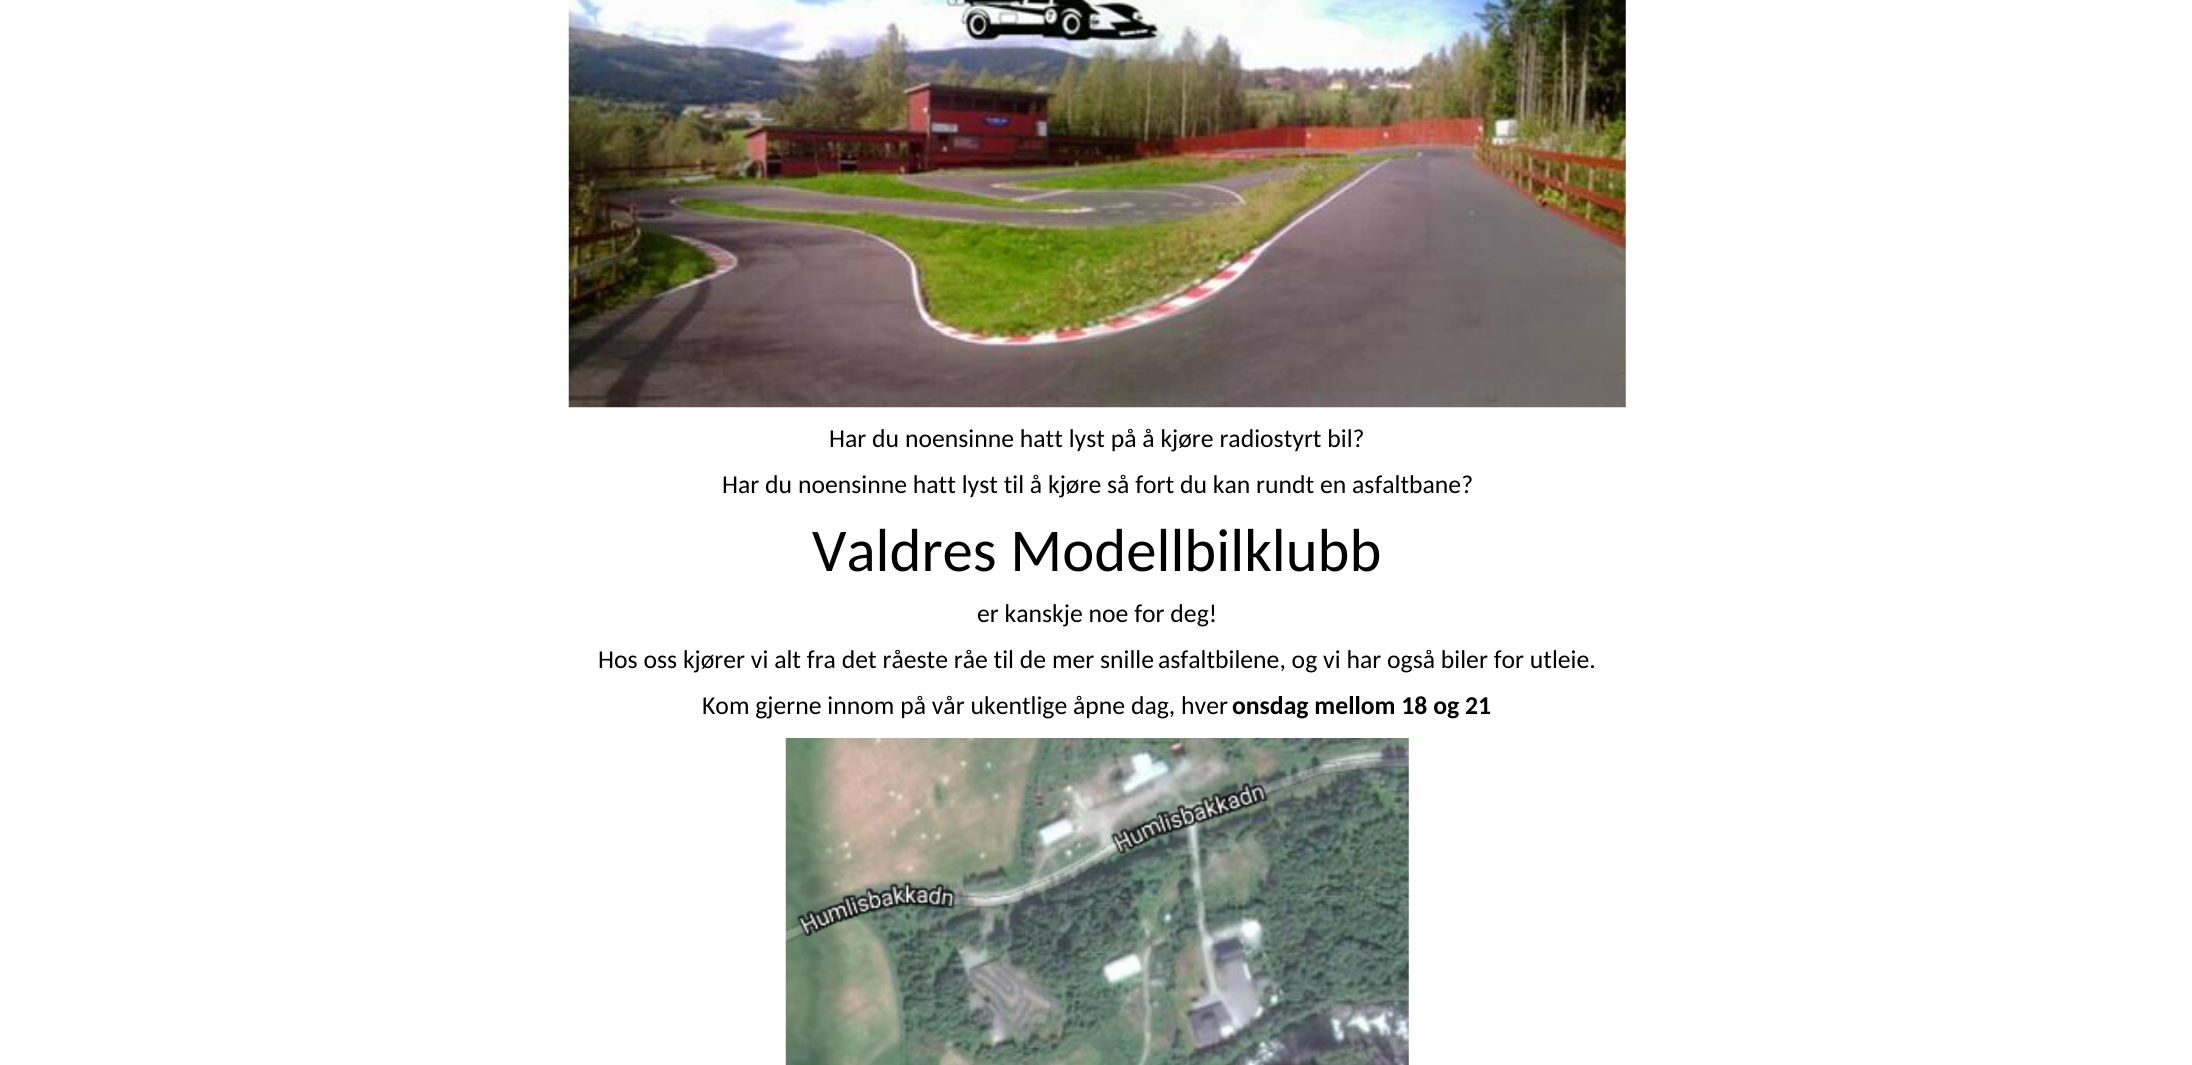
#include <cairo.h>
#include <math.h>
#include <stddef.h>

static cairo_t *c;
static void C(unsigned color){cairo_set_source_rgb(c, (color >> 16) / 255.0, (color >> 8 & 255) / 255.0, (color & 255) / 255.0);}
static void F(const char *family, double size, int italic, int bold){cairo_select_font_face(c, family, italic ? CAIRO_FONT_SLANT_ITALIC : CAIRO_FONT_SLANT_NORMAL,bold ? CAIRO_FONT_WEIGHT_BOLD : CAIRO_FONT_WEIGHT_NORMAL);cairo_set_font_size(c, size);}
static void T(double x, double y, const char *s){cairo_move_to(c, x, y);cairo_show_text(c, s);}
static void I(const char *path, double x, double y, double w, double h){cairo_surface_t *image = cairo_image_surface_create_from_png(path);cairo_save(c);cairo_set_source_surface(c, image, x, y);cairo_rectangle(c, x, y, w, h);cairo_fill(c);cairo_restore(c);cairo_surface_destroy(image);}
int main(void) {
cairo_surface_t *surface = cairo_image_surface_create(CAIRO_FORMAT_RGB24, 2192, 1065);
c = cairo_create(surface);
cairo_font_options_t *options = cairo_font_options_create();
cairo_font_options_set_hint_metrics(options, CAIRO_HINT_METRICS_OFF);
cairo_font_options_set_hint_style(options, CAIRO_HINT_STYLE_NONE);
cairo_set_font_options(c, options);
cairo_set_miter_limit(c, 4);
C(0xffffff);
cairo_paint(c);
I("1.png",568,0,1058,408);
F("Carlito",25.7,0,0);
C(0x000000);
T(829,447,"Har du noensinne hatt lyst på å kjøre radiostyrt bil?");
T(722,493,"Har du noensinne hatt lyst til å kjøre så fort du kan rundt en asfaltbane?");
F("Carlito",60.75,0,0);
T(812,571,"Valdres Modellbilklubb");
F("Carlito",25.7,0,0);
T(977,622,"er kanskje noe for deg!");
T(598,668,"Hos oss kjører vi alt fra det råeste råe til de mer snille");
T(1158,668,"asfaltbilene, og vi har også biler for utleie.");
T(702,714,"Kom gjerne innom på vår ukentlige åpne dag, hver");
F("Carlito",25.7,0,1);
T(1232,714,"onsdag mellom 18 og 21");
I("2.png",785,738,624,327);
cairo_surface_write_to_png(surface, "o.png");
cairo_font_options_destroy(options);
cairo_destroy(c);
cairo_surface_destroy(surface);
return 0;
}
